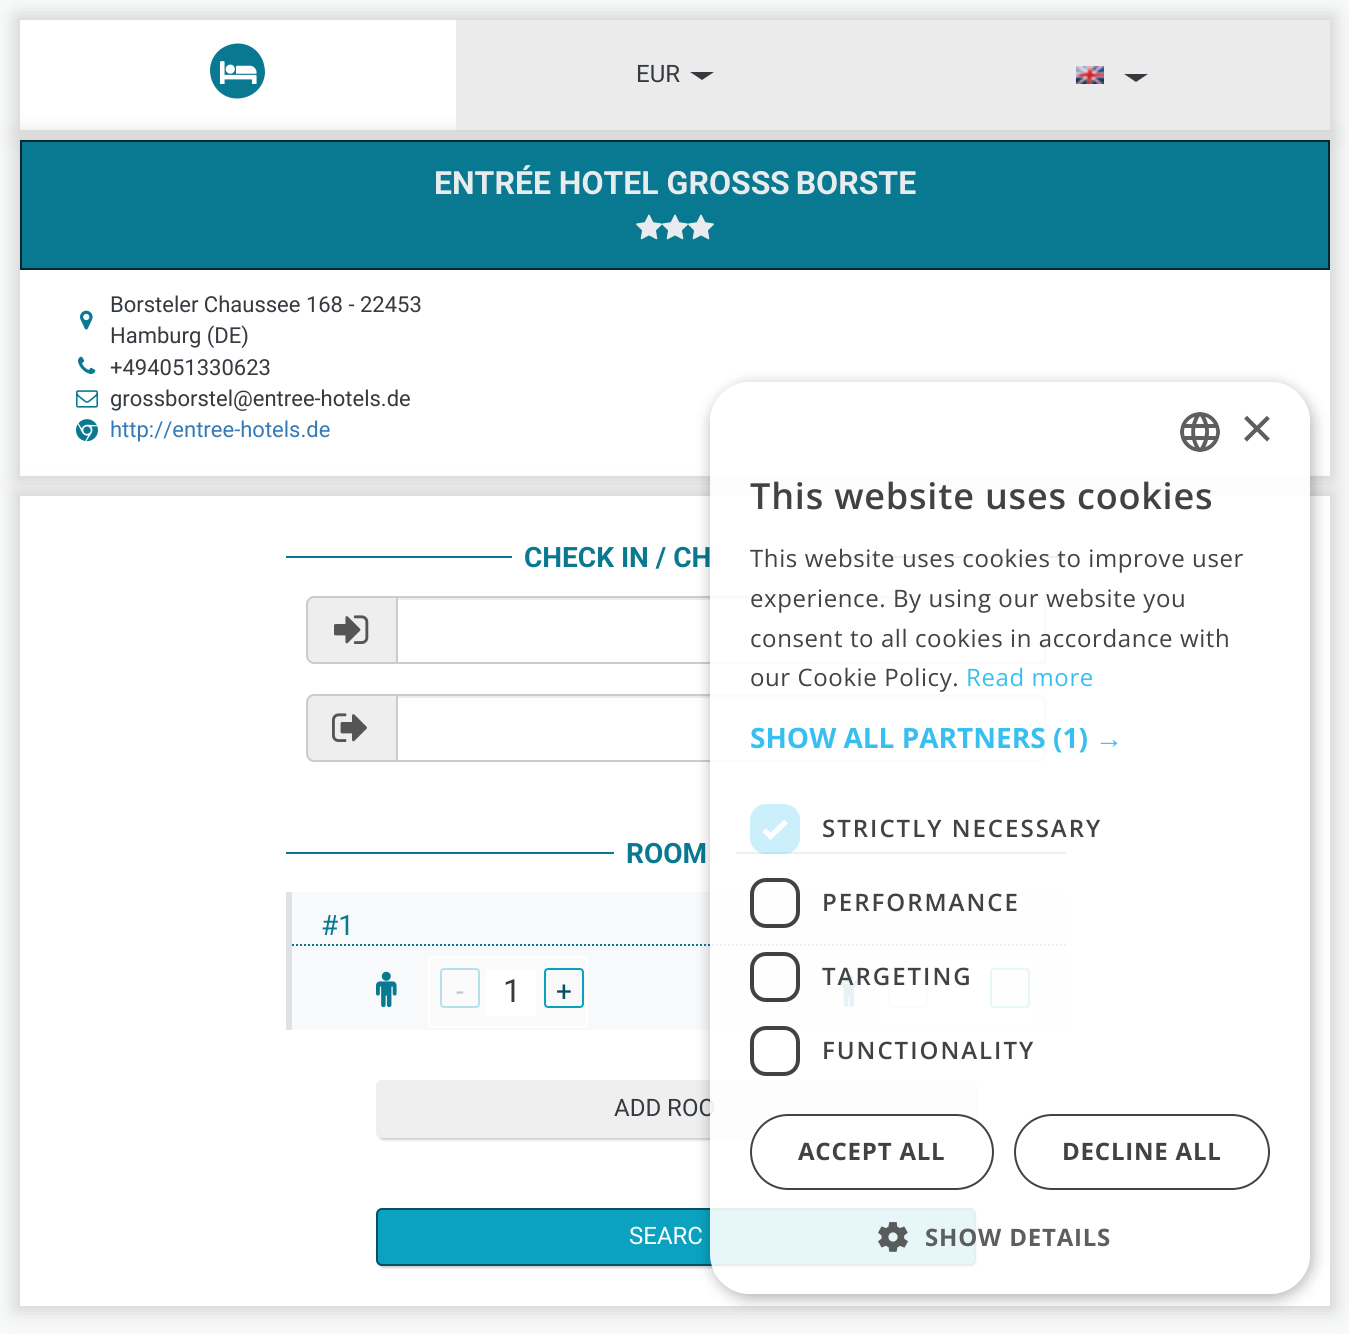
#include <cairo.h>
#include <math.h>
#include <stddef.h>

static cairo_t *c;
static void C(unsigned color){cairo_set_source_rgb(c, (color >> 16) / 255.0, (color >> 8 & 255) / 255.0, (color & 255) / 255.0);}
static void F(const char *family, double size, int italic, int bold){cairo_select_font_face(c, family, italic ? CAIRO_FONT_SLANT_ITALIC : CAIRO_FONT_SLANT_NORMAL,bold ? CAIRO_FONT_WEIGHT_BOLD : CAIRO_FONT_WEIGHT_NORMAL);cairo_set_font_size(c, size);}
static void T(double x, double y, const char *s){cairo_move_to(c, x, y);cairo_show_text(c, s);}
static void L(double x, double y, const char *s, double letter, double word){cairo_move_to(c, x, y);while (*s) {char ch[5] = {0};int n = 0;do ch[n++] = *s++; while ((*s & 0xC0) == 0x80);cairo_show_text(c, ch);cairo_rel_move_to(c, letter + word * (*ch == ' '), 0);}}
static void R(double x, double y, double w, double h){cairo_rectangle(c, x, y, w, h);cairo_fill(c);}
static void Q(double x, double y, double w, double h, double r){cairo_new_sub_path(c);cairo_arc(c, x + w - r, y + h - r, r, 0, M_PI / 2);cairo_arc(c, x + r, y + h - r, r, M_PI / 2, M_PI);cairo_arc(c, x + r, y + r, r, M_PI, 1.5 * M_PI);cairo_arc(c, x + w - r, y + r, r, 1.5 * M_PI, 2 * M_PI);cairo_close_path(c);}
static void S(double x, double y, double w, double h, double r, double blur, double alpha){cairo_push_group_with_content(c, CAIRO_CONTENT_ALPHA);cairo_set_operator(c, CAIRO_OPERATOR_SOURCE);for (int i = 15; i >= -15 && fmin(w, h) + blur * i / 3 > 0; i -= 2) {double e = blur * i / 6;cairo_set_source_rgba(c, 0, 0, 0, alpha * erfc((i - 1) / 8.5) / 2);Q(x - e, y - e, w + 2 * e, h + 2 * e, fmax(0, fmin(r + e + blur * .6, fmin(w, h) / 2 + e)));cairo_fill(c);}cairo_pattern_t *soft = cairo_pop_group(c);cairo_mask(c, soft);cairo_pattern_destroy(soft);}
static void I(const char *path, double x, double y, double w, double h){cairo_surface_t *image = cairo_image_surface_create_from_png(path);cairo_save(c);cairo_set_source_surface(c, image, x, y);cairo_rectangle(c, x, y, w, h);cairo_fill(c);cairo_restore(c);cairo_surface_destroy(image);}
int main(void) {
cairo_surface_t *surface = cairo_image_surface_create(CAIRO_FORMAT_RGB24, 1349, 1334);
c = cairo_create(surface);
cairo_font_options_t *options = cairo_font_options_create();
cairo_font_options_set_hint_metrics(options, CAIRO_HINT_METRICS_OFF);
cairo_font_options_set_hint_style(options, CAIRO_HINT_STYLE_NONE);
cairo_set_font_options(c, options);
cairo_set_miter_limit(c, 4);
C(0xf8f9fa);
cairo_paint(c);
C(0xd0d0d0);
S(16,16,1318,118,0,10,1);
C(0xffffff);
R(20,20,436,110);
C(0x087990);
cairo_new_path(c);
cairo_move_to(c,261,57);
cairo_curve_to(c,264,62,265,68,265,73);
cairo_curve_to(c,263,100,227,108,214,85);
cairo_curve_to(c,211,80,210,75,210,69);
cairo_curve_to(c,212,42,248,34,261,57);
cairo_close_path(c);
cairo_fill(c);
I("1.png",220,61,37,23);
cairo_save(c);
cairo_set_fill_rule(c,CAIRO_FILL_RULE_EVEN_ODD);
cairo_new_path(c);
cairo_move_to(c,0,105);
cairo_line_to(c,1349,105);
cairo_line_to(c,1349,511);
cairo_line_to(c,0,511);
cairo_close_path(c);
cairo_move_to(c,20,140);
cairo_line_to(c,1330,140);
cairo_line_to(c,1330,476);
cairo_line_to(c,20,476);
cairo_close_path(c);
cairo_clip(c);
C(0xd0d0d0);
S(16,136,1318,344,0,10,1);
cairo_restore(c);
C(0xebebeb);
R(456,20,874,110);
F("Roboto",24,0,0);
C(0x343a40);
T(636,82,"EUR");
cairo_new_path(c);
cairo_move_to(c,690,72);
cairo_line_to(c,714,72);
cairo_line_to(c,702,80);
cairo_close_path(c);
cairo_fill(c);
I("2.png",1076,66,28,18);
cairo_new_path(c);
cairo_move_to(c,1124,74);
cairo_line_to(c,1148,74);
cairo_line_to(c,1136,82);
cairo_close_path(c);
cairo_fill(c);
cairo_set_source_rgba(c,1,1,1,0.95);
R(20,270,1310,206);
C(0x087990);
cairo_rectangle(c,21,141,1308,128);
cairo_fill_preserve(c);
C(0x032830);
cairo_stroke(c);
F("Roboto",32,0,1);
C(0xe9ecef);
T(434,194,"ENTRÉE HOTEL GROSS");
L(770,194,"S BORSTE",0,-2);
I("3.png",636,214,26,26);
I("3.png",662,214,26,26);
I("3.png",688,214,26,26);
I("4.png",80,310,13,20);
F("Roboto",22,0,0);
C(0x343a40);
T(110,312,"Borsteler Chaussee 168 - 22453");
T(110,343,"Hamburg (DE)");
I("5.png",78,356,18,18);
T(110,375,"+494051330623");
I("6.png",76,390,22,18);
T(110,406,"grossborstel@entree-hotels.de");
I("7.png",76,419,22,23);
C(0x337ab7);
T(110,437,"http://entree-hotels.de");
C(0xd0d0d0);
S(16,492,1318,818,0,10,1);
C(0xffffff);
R(20,496,1310,810);
C(0x087990);
R(286,556,226,2);
F("Roboto",28,0,1);
T(524,567,"CHECK IN / CH");
R(838,556,228,2);
C(0xeeeeee);
cairo_new_path(c);
cairo_move_to(c,314,596);
cairo_line_to(c,396,596);
cairo_line_to(c,396,664);
cairo_line_to(c,314,664);
cairo_curve_to(c,309.5,664,306,660.5,306,656);
cairo_line_to(c,306,604);
cairo_curve_to(c,306,599.5,309.5,596,314,596);
cairo_close_path(c);
cairo_fill(c);
C(0xcccccc);
cairo_set_fill_rule(c,CAIRO_FILL_RULE_EVEN_ODD);
cairo_new_path(c);
cairo_move_to(c,314,596);
cairo_line_to(c,396,596);
cairo_line_to(c,396,664);
cairo_line_to(c,314,664);
cairo_curve_to(c,310,664,306,660,306,656);
cairo_line_to(c,306,604);
cairo_curve_to(c,306,600,310,596,314,596);
cairo_close_path(c);
cairo_move_to(c,314,598);
cairo_line_to(c,396,598);
cairo_line_to(c,396,662);
cairo_line_to(c,314,662);
cairo_curve_to(c,311,662,308,659,308,656);
cairo_line_to(c,308,604);
cairo_curve_to(c,308,601,311,598,314,598);
cairo_close_path(c);
cairo_fill(c);
I("8.png",334,615,35,29);
C(0xececec);
R(398,598,646,2);
cairo_rectangle(c,397,597,648,66);
C(0xcccccc);
cairo_stroke(c);
C(0xeeeeee);
cairo_new_path(c);
cairo_move_to(c,314,694);
cairo_line_to(c,396,694);
cairo_line_to(c,396,762);
cairo_line_to(c,314,762);
cairo_curve_to(c,309.5,762,306,758.5,306,754);
cairo_line_to(c,306,702);
cairo_curve_to(c,306,697.5,309.5,694,314,694);
cairo_close_path(c);
cairo_fill(c);
C(0xcccccc);
cairo_new_path(c);
cairo_move_to(c,314,694);
cairo_line_to(c,396,694);
cairo_line_to(c,396,762);
cairo_line_to(c,314,762);
cairo_curve_to(c,310,762,306,758,306,754);
cairo_line_to(c,306,702);
cairo_curve_to(c,306,698,310,694,314,694);
cairo_close_path(c);
cairo_move_to(c,314,696);
cairo_line_to(c,396,696);
cairo_line_to(c,396,760);
cairo_line_to(c,314,760);
cairo_curve_to(c,311,760,308,757,308,754);
cairo_line_to(c,308,702);
cairo_curve_to(c,308,699,311,696,314,696);
cairo_close_path(c);
cairo_fill(c);
I("9.png",332,713,35,29);
C(0xececec);
cairo_set_fill_rule(c,CAIRO_FILL_RULE_WINDING);
cairo_new_path(c);
cairo_move_to(c,398,698);
cairo_line_to(c,1038,698);
cairo_curve_to(c,1041,698,1044,701,1044,704);
cairo_curve_to(c,1044,700,1043,696,1038,696);
cairo_line_to(c,398,696);
cairo_close_path(c);
cairo_fill(c);
cairo_new_path(c);
cairo_move_to(c,397,695);
cairo_line_to(c,1038,695);
cairo_curve_to(c,1042,695,1045,698,1045,702);
cairo_line_to(c,1045,754);
cairo_curve_to(c,1045,758,1042,761,1038,761);
cairo_line_to(c,397,761);
cairo_close_path(c);
C(0xcccccc);
cairo_stroke(c);
C(0x087990);
R(286,852,328,2);
T(626,863,"ROOM");
R(736,852,330,2);
C(0xf8f9fa);
R(292,892,774,138);
C(0xdee2e6);
R(286,892,6,138);
cairo_new_path(c);
cairo_move_to(c,292,945);
cairo_line_to(c,1066,945);
C(0x087990);
cairo_set_dash(c,(double[]){2,2},2,0);
cairo_stroke(c);
F("Roboto",28,0,0);
T(321,935,"#1");
I("10.png",376,971,21,37);
C(0xfbfbfc);
Q(429,957,158,70,5);
cairo_fill_preserve(c);
C(0xffffff);
cairo_set_dash(c,NULL,0,0);
cairo_stroke(c);
Q(441,969,38,38,3);
C(0xb3e0ea);
cairo_stroke(c);
C(0xb1c8cd);
T(456,1001,"-");
C(0xffffff);
R(486,970,50,46);
F("Roboto",32,0,0);
C(0x343a40);
T(503,1002,"1");
C(0xf9f9f9);
Q(545,969,38,38,3);
cairo_fill_preserve(c);
C(0x0aa2c0);
cairo_stroke(c);
F("Roboto",28,0,0);
C(0x055160);
T(556,1001,"+");
I("11.png",837,974,24,33);
C(0xfbfbfc);
Q(877,957,158,70,5);
cairo_fill_preserve(c);
C(0xffffff);
cairo_stroke(c);
Q(889,969,38,38,3);
C(0xb3e0ea);
cairo_stroke(c);
C(0xffffff);
R(934,970,50,46);
C(0xf9f9f9);
Q(991,969,38,38,3);
cairo_fill_preserve(c);
C(0x0aa2c0);
cairo_stroke(c);
C(0xd0d0d0);
S(378,1082,600,58,6,1,1);
C(0xefefef);
Q(376,1080,600,58,6);
cairo_fill(c);
F("Roboto",24,0,0);
C(0x343a40);
T(614,1116,"ADD ROO");
C(0xd0d0d0);
S(378,1210,600,58,6,1,1);
C(0x0aa2c0);
Q(377,1209,598,56,5);
cairo_fill_preserve(c);
C(0x055160);
cairo_stroke(c);
C(0xfdfdfd);
T(629,1244,"SEARC");
cairo_save(c);
cairo_set_fill_rule(c,CAIRO_FILL_RULE_EVEN_ODD);
cairo_new_path(c);
cairo_move_to(c,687,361);
cairo_line_to(c,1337,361);
cairo_line_to(c,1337,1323);
cairo_line_to(c,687,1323);
cairo_close_path(c);
cairo_move_to(c,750,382);
cairo_line_to(c,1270,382);
cairo_curve_to(c,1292,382,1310,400,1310,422);
cairo_line_to(c,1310,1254);
cairo_curve_to(c,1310,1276,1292,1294,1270,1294);
cairo_line_to(c,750,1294);
cairo_curve_to(c,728,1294,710,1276,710,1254);
cairo_line_to(c,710,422);
cairo_curve_to(c,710,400,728,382,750,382);
cairo_close_path(c);
cairo_clip(c);
C(0x000000);
S(712,386,600,912,40,8,.32);
cairo_restore(c);
cairo_set_source_rgba(c,1,1,1,0.9);
Q(710,382,600,912,40);
cairo_fill(c);
I("12.png",1180,412,40,40);
F("Liberation Sans",58,0,0);
C(0x5d5e5e);
T(1240,448,"×");
F("Open Sans SemiBold",36,0,0);
C(0x424242);
L(750,509,"This website uses cookies",.8,0);
F("Open Sans",24,0,0);
L(750,567,"This website uses cookies to improve user",.6,0);
L(750,607,"experience. By using our website you",.6,0);
L(750,647,"consent to all cookies in accordance with",.6,0);
L(750,686,"our Cookie Policy.",.6,0);
C(0x38bff1);
L(966,686,"Read more",.6,0);
F("Open Sans",28,0,1);
T(750,748,"SHOW ALL PARTNERS (1)");
F("Liberation Sans",28,0,1);
T(1095,748,"→");
cairo_set_source_rgba(c,0.133,0.722,0.941,0.23);
Q(750,804,50,50,16);
cairo_fill(c);
cairo_new_path(c);
cairo_move_to(c,764,830);
cairo_line_to(c,770.5,836.5);
cairo_line_to(c,786,821.5);
C(0xffffff);
cairo_set_line_width(c,5.2);
cairo_stroke(c);
F("Open Sans SemiBold",24,0,0);
C(0x424242);
L(822,837,"STRICTLY NECESSARY",2,0);
Q(752,880,46,46,14);
cairo_set_line_width(c,4);
cairo_stroke(c);
L(822,911,"PERFORMANCE",2,0);
Q(752,954,46,46,14);
C(0x414142);
cairo_stroke(c);
C(0x424242);
L(822,985,"TARGETING",2,0);
Q(752,1028,46,46,14);
cairo_stroke(c);
L(822,1059,"FUNCTIONALITY",2,0);
cairo_set_source_rgba(c,1,1,1,0.9);
Q(751,1115,242,74,37);
cairo_fill_preserve(c);
C(0x424242);
cairo_set_line_width(c,2);
cairo_stroke(c);
F("Open Sans",24,0,1);
L(798,1160,"ACCEPT ALL",.8,0);
Q(1015,1115,254,74,37);
cairo_stroke(c);
L(1062,1160,"DECLINE ALL",.8,0);
I("13.png",878,1222,30,30);
C(0x5d5e5e);
L(925,1246,"SHOW DETAILS",.8,0);
cairo_surface_write_to_png(surface, "o.png");
cairo_font_options_destroy(options);
cairo_destroy(c);
cairo_surface_destroy(surface);
return 0;
}
